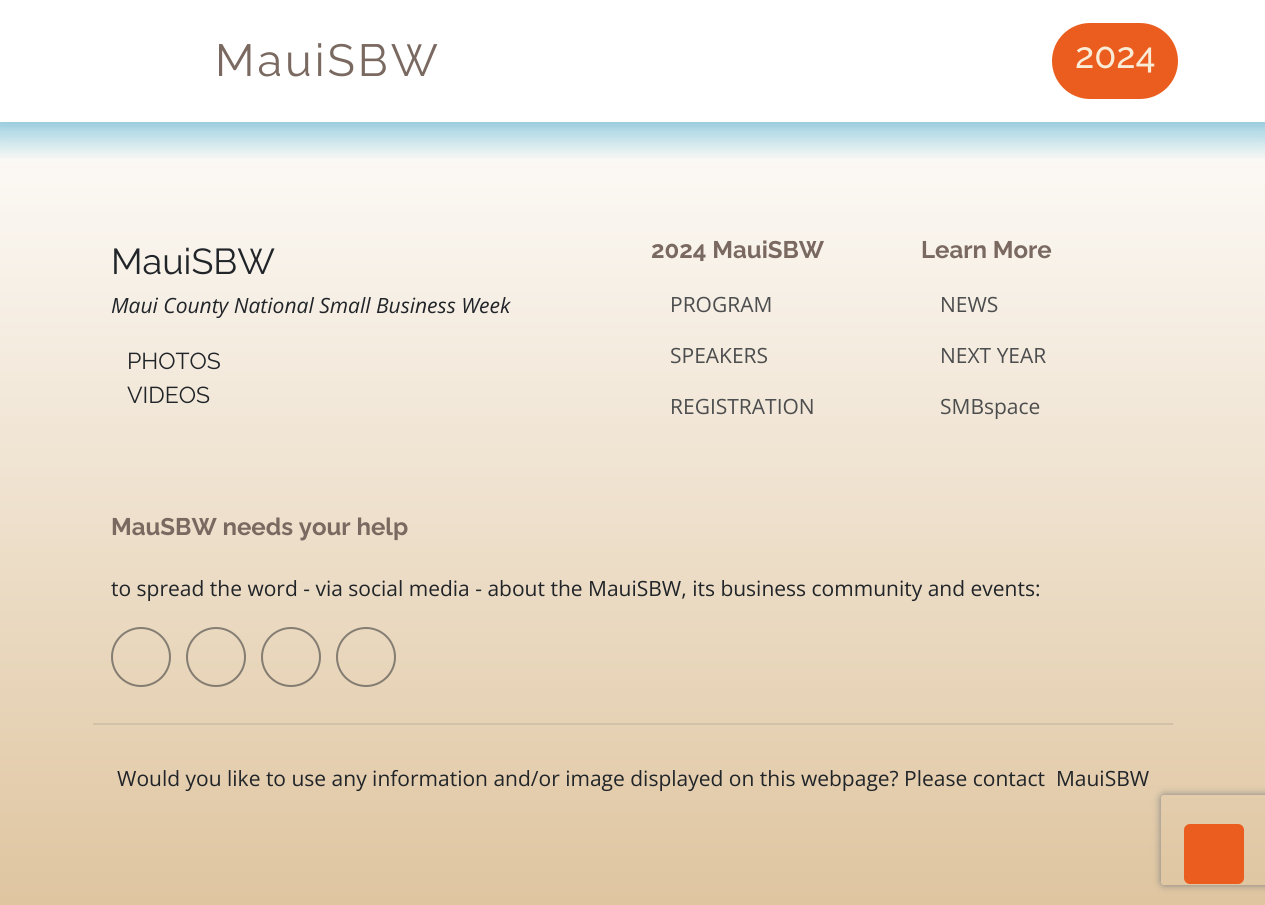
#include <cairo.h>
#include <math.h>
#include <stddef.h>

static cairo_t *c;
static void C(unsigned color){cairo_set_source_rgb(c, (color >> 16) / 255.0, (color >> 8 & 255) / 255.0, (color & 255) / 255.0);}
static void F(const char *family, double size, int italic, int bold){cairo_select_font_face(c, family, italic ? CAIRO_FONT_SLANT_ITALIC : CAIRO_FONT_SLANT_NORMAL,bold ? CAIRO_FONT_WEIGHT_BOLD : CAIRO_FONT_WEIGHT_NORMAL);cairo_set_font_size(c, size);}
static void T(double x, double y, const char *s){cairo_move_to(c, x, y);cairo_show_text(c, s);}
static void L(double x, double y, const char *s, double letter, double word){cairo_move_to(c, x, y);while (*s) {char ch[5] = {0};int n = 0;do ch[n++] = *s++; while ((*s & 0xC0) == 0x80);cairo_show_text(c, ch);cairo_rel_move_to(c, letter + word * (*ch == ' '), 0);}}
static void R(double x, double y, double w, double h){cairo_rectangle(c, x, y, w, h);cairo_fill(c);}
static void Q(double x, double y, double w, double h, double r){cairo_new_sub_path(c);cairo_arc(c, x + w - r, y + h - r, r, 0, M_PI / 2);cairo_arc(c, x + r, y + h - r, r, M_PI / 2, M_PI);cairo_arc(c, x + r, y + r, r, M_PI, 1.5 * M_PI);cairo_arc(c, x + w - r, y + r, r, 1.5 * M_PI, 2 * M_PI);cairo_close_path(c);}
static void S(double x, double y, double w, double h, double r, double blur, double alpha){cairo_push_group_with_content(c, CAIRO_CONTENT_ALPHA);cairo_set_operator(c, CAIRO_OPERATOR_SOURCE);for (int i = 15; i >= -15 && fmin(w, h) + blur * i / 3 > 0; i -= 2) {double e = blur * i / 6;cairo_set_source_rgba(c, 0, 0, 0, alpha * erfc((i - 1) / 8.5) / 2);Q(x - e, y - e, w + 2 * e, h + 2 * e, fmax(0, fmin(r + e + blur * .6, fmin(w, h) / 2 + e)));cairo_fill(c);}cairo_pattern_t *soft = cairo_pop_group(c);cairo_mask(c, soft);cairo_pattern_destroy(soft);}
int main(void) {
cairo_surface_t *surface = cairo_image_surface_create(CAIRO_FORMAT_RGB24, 1265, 905);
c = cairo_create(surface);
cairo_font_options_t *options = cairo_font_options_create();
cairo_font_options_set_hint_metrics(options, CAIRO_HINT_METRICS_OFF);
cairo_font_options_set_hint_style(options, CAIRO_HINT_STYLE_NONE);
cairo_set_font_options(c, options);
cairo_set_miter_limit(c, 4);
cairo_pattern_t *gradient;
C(0xffffff);
cairo_paint(c);
gradient = cairo_pattern_create_linear(633,-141,633,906);
cairo_pattern_add_color_stop_rgba(gradient,.2,1,1,1,1);
cairo_pattern_add_color_stop_rgba(gradient,1,0.875,0.773,0.627,1);
cairo_set_source(c,gradient);
cairo_pattern_destroy(gradient);
R(0,122,1265,783);
gradient = cairo_pattern_create_linear(633,-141,633,161);
cairo_pattern_add_color_stop_rgba(gradient,.2,0.996,0.82,0.176,1);
cairo_pattern_add_color_stop_rgba(gradient,.47,0.996,0.82,0.176,0);
cairo_pattern_add_color_stop_rgba(gradient,.47,0.235,0.671,0.816,0);
cairo_pattern_add_color_stop_rgba(gradient,.73,0.235,0.671,0.816,1);
cairo_pattern_add_color_stop_rgba(gradient,1,0.235,0.671,0.816,0);
cairo_set_source(c,gradient);
cairo_pattern_destroy(gradient);
R(0,122,1265,37);
C(0x212529);
S(0,0,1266,122,0,11,.1);
C(0xffffff);
R(0,0,1265,122);
F("Raleway",45,0,0);
C(0x7a6960);
L(215,76,"MauiSBW",3,0);
C(0xeb5d1e);
Q(1052,23,126,76,38);
cairo_fill(c);
F("Raleway Medium",36,0,0);
C(0xfaebd7);
T(1075,68,"2024");
F("Raleway",36,0,0);
C(0x212529);
T(111,274,"MauiSBW");
F("Open Sans",21,1,0);
T(111,313,"Maui County National Small Business Week");
F("Raleway",23,0,0);
T(127,369,"PHOTOS");
T(127,403,"VIDEOS");
F("Raleway",24,0,1);
C(0x7a6960);
T(651,258,"2024 MauiSBW");
F("Open Sans",21,0,0);
C(0x4c4d4e);
T(670,312,"PROGRAM");
T(670,363,"SPEAKERS");
T(670,414,"REGISTRATION");
F("Raleway",24,0,1);
C(0x7a6960);
T(921,258,"Learn More");
F("Open Sans",21,0,0);
C(0x4c4d4e);
T(940,312,"NEWS");
T(940,363,"NEXT YEAR");
T(940,414,"SMBspace");
F("Raleway",24,0,1);
C(0x7a6960);
T(111,535,"MauSBW needs your help");
F("Open Sans",21,0,0);
C(0x212529);
T(111,596,"to spread the word - via social media - about the MauiSBW, its business community and events:");
cairo_new_path(c);
cairo_arc(c,141,657,29,0,2 * M_PI);
cairo_set_source_rgba(c,0.129,0.145,0.161,0.5);
cairo_stroke(c);
cairo_arc(c,216,657,29,0,2 * M_PI);
cairo_stroke(c);
cairo_arc(c,291,657,29,0,2 * M_PI);
cairo_stroke(c);
cairo_arc(c,366,657,29,0,2 * M_PI);
cairo_stroke(c);
C(0xd2c1a7);
R(93,723,1080,2);
C(0x212529);
T(117,786,"Would you like to use any information and/or image displayed on this webpage? Please contact  MauiSBW");
cairo_save(c);
cairo_set_fill_rule(c,CAIRO_FILL_RULE_EVEN_ODD);
cairo_new_path(c);
cairo_move_to(c,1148,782);
cairo_line_to(c,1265,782);
cairo_line_to(c,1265,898);
cairo_line_to(c,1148,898);
cairo_close_path(c);
cairo_move_to(c,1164,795);
cairo_line_to(c,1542,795);
cairo_curve_to(c,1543.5,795,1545,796.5,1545,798);
cairo_line_to(c,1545,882);
cairo_curve_to(c,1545,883.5,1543.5,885,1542,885);
cairo_line_to(c,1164,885);
cairo_curve_to(c,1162.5,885,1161,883.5,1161,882);
cairo_line_to(c,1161,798);
cairo_curve_to(c,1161,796.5,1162.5,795,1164,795);
cairo_close_path(c);
cairo_clip(c);
C(0x808080);
S(1161,795,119,90,3,4,1);
cairo_restore(c);
C(0xeb5d1e);
Q(1184,824,60,60,6);
cairo_fill(c);
cairo_surface_write_to_png(surface, "o.png");
cairo_font_options_destroy(options);
cairo_destroy(c);
cairo_surface_destroy(surface);
return 0;
}
